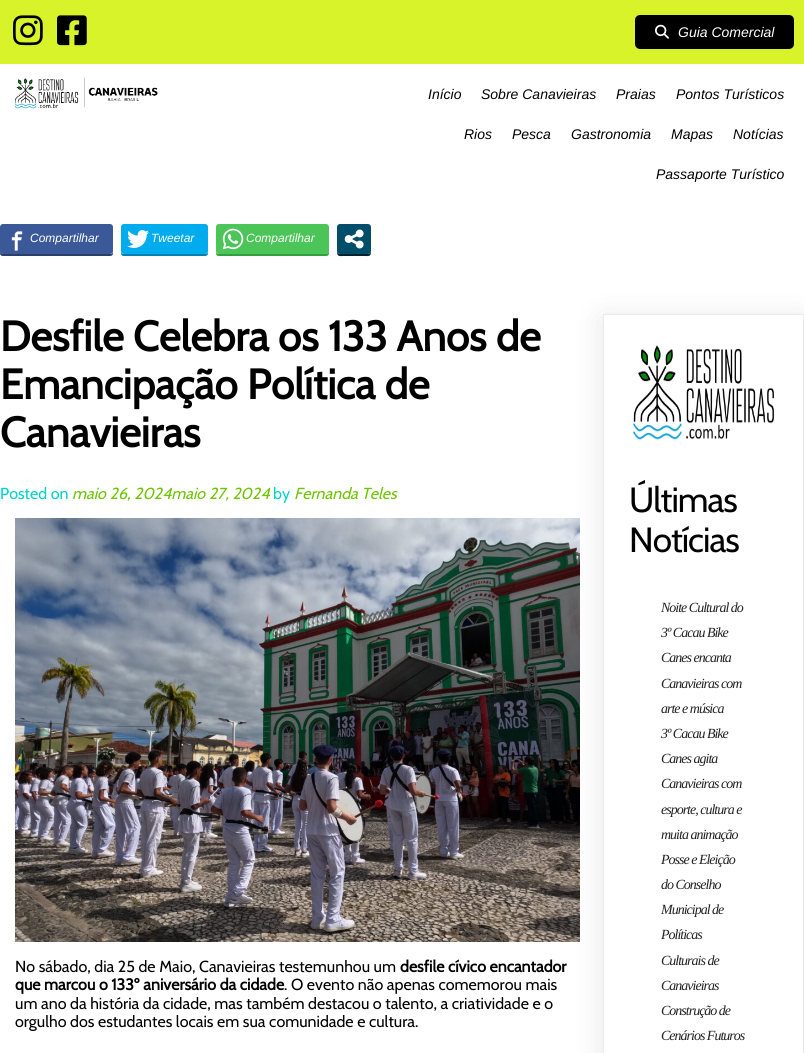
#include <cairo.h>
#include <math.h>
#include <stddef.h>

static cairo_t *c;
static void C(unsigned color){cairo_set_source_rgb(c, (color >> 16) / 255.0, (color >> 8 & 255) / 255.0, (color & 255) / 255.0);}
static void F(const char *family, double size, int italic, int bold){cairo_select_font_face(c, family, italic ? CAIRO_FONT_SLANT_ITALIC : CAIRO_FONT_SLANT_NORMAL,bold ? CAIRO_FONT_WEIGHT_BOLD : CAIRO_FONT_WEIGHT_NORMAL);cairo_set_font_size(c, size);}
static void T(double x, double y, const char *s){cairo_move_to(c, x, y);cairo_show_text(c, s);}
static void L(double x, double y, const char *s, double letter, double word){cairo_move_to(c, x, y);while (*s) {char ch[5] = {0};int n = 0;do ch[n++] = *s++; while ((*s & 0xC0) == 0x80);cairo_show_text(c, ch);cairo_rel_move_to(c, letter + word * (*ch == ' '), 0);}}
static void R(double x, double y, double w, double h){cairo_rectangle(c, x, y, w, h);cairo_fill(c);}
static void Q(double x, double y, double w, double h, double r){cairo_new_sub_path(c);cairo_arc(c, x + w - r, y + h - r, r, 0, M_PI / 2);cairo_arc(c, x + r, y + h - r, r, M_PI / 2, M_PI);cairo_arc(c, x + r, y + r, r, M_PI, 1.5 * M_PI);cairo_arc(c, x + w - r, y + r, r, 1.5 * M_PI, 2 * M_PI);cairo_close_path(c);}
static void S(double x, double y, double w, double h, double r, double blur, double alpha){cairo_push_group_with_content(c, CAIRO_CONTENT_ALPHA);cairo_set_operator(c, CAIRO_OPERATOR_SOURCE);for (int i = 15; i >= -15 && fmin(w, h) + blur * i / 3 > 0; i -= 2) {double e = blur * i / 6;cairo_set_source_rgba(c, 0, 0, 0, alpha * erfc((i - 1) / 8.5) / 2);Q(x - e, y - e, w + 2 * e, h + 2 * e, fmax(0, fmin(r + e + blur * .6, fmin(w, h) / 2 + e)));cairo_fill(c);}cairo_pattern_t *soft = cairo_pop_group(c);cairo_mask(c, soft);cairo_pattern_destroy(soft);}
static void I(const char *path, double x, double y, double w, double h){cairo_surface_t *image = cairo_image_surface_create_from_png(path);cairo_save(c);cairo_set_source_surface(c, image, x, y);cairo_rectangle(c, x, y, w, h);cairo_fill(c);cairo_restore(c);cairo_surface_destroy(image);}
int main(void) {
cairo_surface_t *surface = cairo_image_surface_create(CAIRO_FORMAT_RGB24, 804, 1053);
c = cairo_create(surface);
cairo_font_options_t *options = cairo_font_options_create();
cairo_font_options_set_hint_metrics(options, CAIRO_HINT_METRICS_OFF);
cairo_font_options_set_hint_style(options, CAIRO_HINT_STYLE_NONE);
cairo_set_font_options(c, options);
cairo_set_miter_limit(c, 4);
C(0xffffff);
cairo_paint(c);
C(0xd8f32a);
R(0,0,804,64);
I("1.png",13,15,30,31);
I("2.png",57,15,30,31);
C(0x000000);
Q(635,15,159,34,5);
cairo_fill(c);
I("3.png",655,24,14,15);
F("Liberation Sans",14,1,0);
C(0xffffff);
T(678,37,"Guia Comercial");
I("4.png",14,77,144,32);
C(0x000000);
T(428,99,"Início");
T(481,99,"Sobre Canavieiras");
T(616,99,"Praias");
T(676,99,"Pontos Turísticos");
T(464,139,"Rios");
T(512,139,"Pesca");
T(571,139,"Gastronomia");
T(671,139,"Mapas");
T(733,139,"Notícias");
T(656,179,"Passaporte Turístico");
C(0x2a3f6c);
cairo_new_path(c);
cairo_move_to(c,0,251);
cairo_line_to(c,0,253);
cairo_curve_to(c,0,255,1,256,3,256);
cairo_line_to(c,110,256);
cairo_curve_to(c,112,256,113,255,113,253);
cairo_line_to(c,113,251);
cairo_curve_to(c,113,253,112,254,110,254);
cairo_line_to(c,3,254);
cairo_line_to(c,1,253);
cairo_close_path(c);
cairo_fill(c);
C(0x3b5998);
Q(0,224,113,30,3);
cairo_fill(c);
I("5.png",11,231,12,20);
F("Liberation Sans",12,1,0);
C(0xffffff);
T(30,242,"Compartilhar");
C(0x0080b0);
cairo_new_path(c);
cairo_move_to(c,121,251);
cairo_line_to(c,121,253);
cairo_curve_to(c,121,255,122,256,124,256);
cairo_line_to(c,205,256);
cairo_curve_to(c,207,256,208,255,208,253);
cairo_line_to(c,208,251);
cairo_curve_to(c,208,253,207,254,205,254);
cairo_line_to(c,124,254);
cairo_curve_to(c,122,254,121,253,121,251);
cairo_close_path(c);
cairo_fill(c);
C(0x00aced);
Q(121,224,87,30,3);
cairo_fill(c);
I("6.png",127,230,22,18);
C(0xffffff);
T(151,242,"Tweetar");
C(0x339f3e);
cairo_new_path(c);
cairo_move_to(c,216,251);
cairo_line_to(c,216,253);
cairo_curve_to(c,216,255,217,256,219,256);
cairo_line_to(c,326,256);
cairo_curve_to(c,328,256,329,255,329,253);
cairo_line_to(c,329,251);
cairo_line_to(c,328,253);
cairo_line_to(c,326,254);
cairo_line_to(c,219,254);
cairo_curve_to(c,217,254,216,253,216,251);
cairo_close_path(c);
cairo_fill(c);
C(0x4bc557);
Q(216,224,113,30,3);
cairo_fill(c);
I("7.png",222,228,22,22);
C(0xffffff);
T(246,242,"Compartilhar");
C(0x00222e);
cairo_new_path(c);
cairo_move_to(c,337,251);
cairo_curve_to(c,337,257,339,256,344.5,256);
cairo_line_to(c,363.5,256);
cairo_curve_to(c,369,256,371,257,371,251);
cairo_curve_to(c,371,252.5,369.5,254,368,254);
cairo_line_to(c,340,254);
cairo_curve_to(c,338.5,254,337,252.5,337,251);
cairo_close_path(c);
cairo_fill(c);
C(0x014e6b);
Q(337,224,34,30,3);
cairo_fill(c);
I("8.png",344,229,20,20);
F("Cabin",42,0,1);
C(0x000000);
T(0,351,"Desfile Celebra os 133 Anos de");
T(0,399,"Emancipação Política de");
T(0,447,"Canavieiras");
F("Cabin",16,0,0);
C(0x00d3cc);
T(0,499,"Posted on");
F("Cabin",16,1,0);
C(0x6dc400);
T(72,499,"maio 26, 2024maio 27, 2024");
F("Cabin",16,0,0);
C(0x00d3cc);
T(273,499,"by");
F("Cabin",16,1,0);
C(0x6dc400);
T(294,499,"Fernanda Teles");
I("9.png",15,518,565,424);
F("Cabin",16,0,0);
C(0x000000);
T(15,972,"No sábado, dia 25 de Maio, Canavieiras testemunhou um");
F("Cabin",16,0,1);
T(400,972,"desfile cívico encantador");
T(15,990,"que marcou o 133º aniversário da cidade");
F("Cabin",16,0,0);
T(284,990,". O evento não apenas comemorou mais");
T(15,1009,"um ano da história da cidade, mas também destacou o talento, a criatividade e o");
T(15,1027,"orgulho dos estudantes locais em sua comunidade e cultura.");
cairo_save(c);
cairo_set_fill_rule(c,CAIRO_FILL_RULE_EVEN_ODD);
cairo_new_path(c);
cairo_move_to(c,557,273);
cairo_line_to(c,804,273);
cairo_line_to(c,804,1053);
cairo_line_to(c,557,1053);
cairo_close_path(c);
cairo_move_to(c,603,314);
cairo_line_to(c,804,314);
cairo_line_to(c,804,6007);
cairo_line_to(c,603,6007);
cairo_close_path(c);
cairo_clip(c);
C(0x000000);
S(603,319,201,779,0,15,.1);
cairo_restore(c);
cairo_rectangle(c,603.5,314.5,200,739);
C(0xeaeaea);
cairo_set_line_width(c,1);
cairo_stroke(c);
I("10.png",633,345,141,95);
F("Cabin",35,0,0);
C(0x000000);
L(629,512,"Últimas",-1,0);
L(629,552,"Notícias",-1,0);
F("Liberation Serif",14,1,0);
C(0x212121);
L(661,612,"Noite Cultural do",-1,0);
L(661,637,"3º Cacau Bike",-1,0);
L(661,662,"Canes encanta",-1,0);
L(661,688,"Canavieiras com",-1,0);
L(661,713,"arte e música",-1,0);
L(661,738,"3º Cacau Bike",-1,0);
L(661,763,"Canes agita",-1,0);
L(661,788,"Canavieiras com",-1,0);
L(661,814,"esporte, cultura e",-1,0);
L(661,839,"muita animação",-1,0);
L(661,864,"Posse e Eleição",-1,0);
L(661,889,"do Conselho",-1,0);
L(661,914,"Municipal de",-1,0);
L(661,939,"Políticas",-1,0);
L(661,965,"Culturais de",-1,0);
L(661,990,"Canavieiras",-1,0);
L(661,1015,"Construção de",-1,0);
L(661,1040,"Cenários Futuros",-1,0);
cairo_surface_write_to_png(surface, "o.png");
cairo_font_options_destroy(options);
cairo_destroy(c);
cairo_surface_destroy(surface);
return 0;
}
